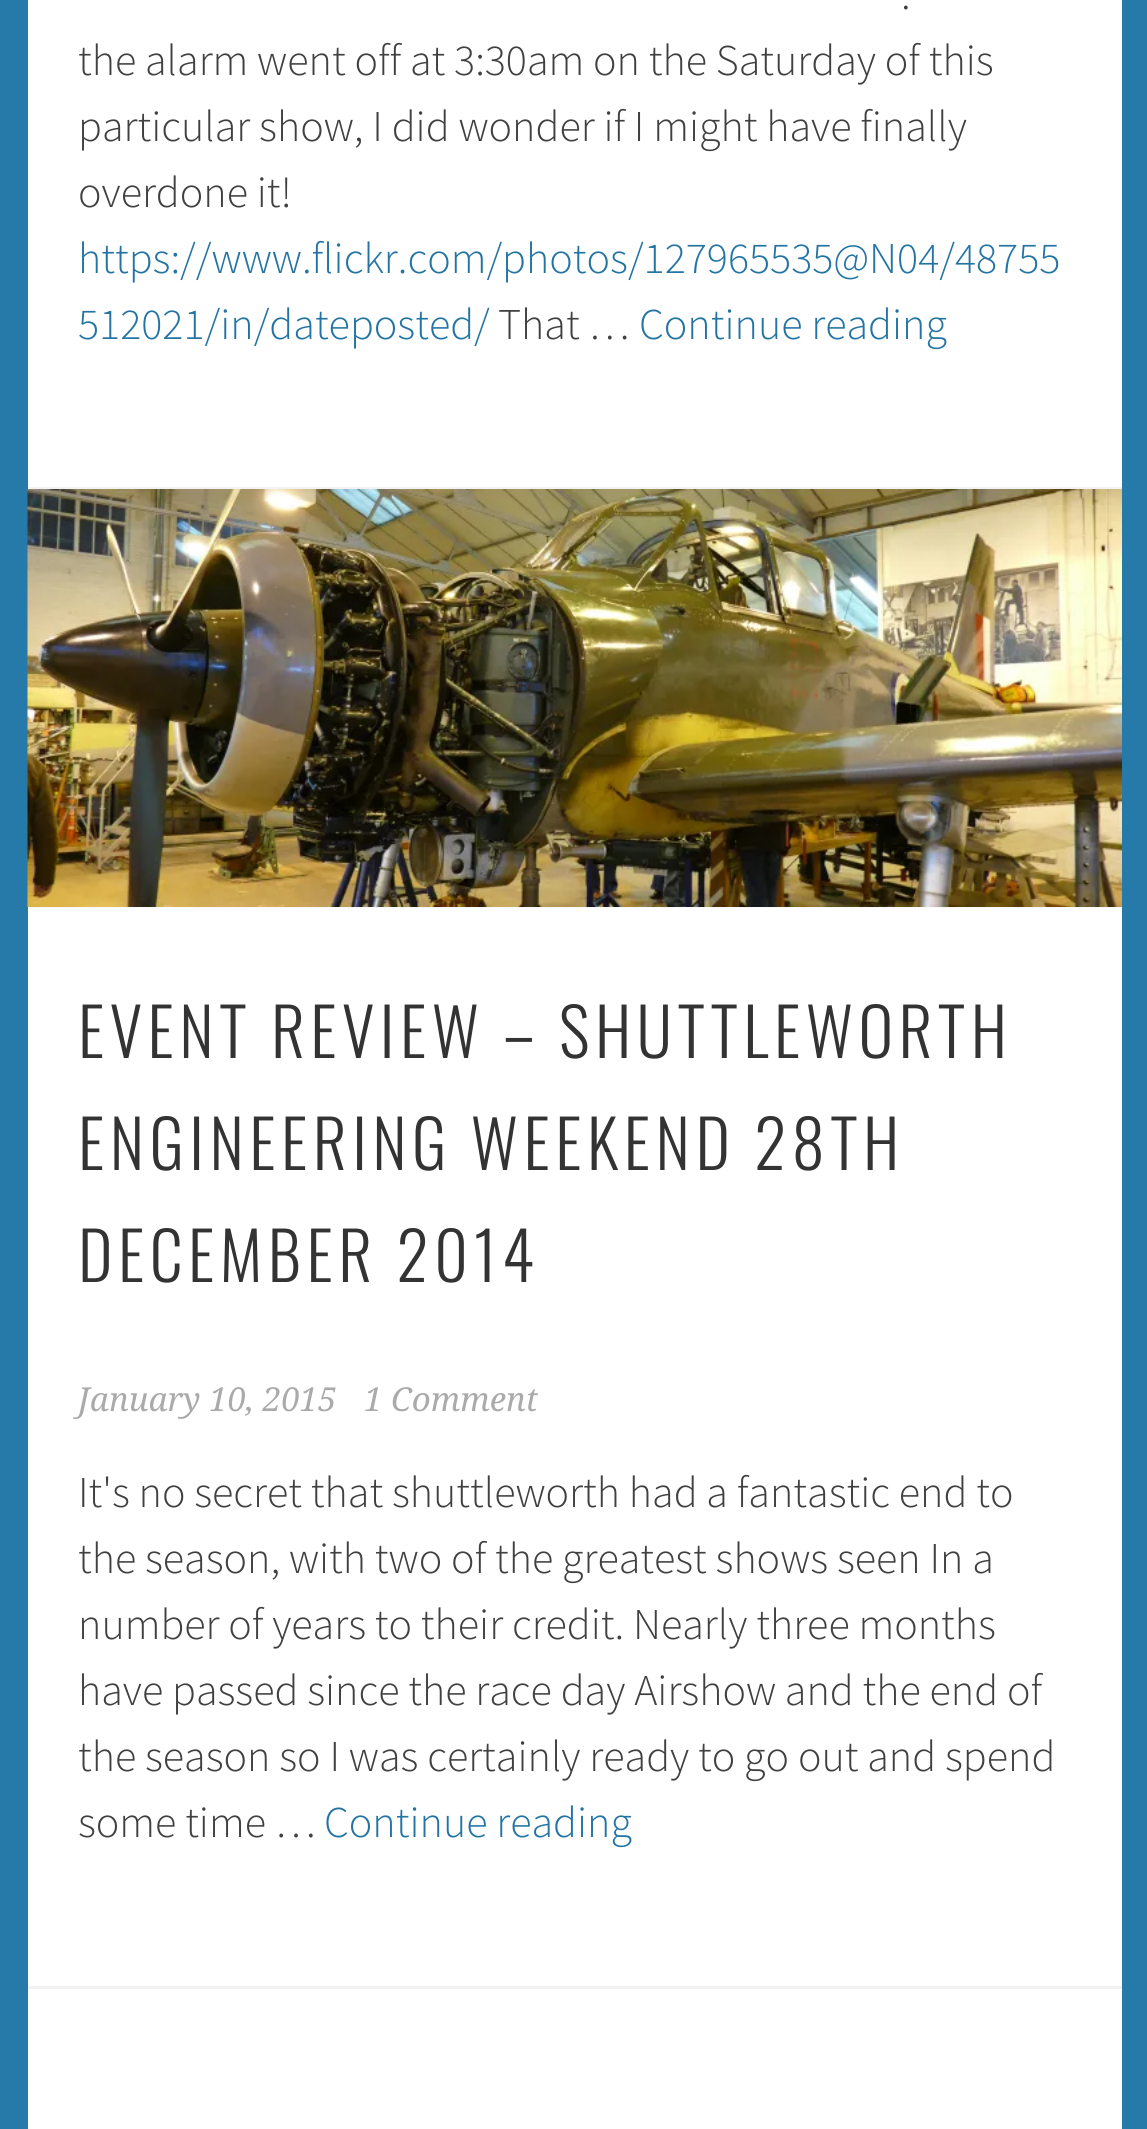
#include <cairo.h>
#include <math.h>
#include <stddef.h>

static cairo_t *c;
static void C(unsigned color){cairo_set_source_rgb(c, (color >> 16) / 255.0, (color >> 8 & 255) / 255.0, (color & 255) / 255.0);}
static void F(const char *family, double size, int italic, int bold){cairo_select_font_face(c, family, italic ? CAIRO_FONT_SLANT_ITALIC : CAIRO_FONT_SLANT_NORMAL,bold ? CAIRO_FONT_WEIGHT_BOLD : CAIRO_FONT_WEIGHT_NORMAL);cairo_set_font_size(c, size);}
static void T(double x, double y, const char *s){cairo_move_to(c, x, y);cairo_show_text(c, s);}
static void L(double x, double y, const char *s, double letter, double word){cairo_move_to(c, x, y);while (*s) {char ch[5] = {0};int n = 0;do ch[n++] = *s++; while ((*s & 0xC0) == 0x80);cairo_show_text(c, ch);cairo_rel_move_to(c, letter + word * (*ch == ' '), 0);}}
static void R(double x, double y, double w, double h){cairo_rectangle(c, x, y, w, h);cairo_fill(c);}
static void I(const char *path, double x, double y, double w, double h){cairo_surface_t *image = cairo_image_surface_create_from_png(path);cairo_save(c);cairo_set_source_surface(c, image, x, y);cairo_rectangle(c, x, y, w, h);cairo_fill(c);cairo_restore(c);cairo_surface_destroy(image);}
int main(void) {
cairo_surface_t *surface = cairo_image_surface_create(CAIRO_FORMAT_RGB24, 1147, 2129);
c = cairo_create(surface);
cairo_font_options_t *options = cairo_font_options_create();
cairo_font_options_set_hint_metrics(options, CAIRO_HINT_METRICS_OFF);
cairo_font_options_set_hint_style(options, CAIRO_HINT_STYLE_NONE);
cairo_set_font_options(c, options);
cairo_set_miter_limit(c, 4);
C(0x267aaa);
cairo_paint(c);
C(0xffffff);
R(28,0,1094,2129);
F("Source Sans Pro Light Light",44,0,0);
C(0x404040);
T(901,9,".");
T(78,75,"the alarm went off at 3:30am on the Saturday of this");
T(78,141,"particular show, I did wonder if I might have finally");
T(78,207,"overdone it!");
C(0x2374a3);
T(78,273,"https://www.flickr.com/photos/127965535@N04/48755");
T(78,339,"512021/in/dateposted/");
C(0x404040);
T(498,339,"That …");
C(0x2374a3);
T(639,339,"Continue reading");
C(0xf2f2f2);
R(28,487,1094,2);
C(0xf8f9f8);
R(28,907,1094,1);
I("1.png",27,489,1095,418);
F("Oswald Light",66,0,0);
C(0x333333);
L(78,1058,"EVENT REVIEW – SHUTTLEWORTH",5.5,0);
L(78,1170,"ENGINEERING WEEKEND 28TH",5.5,0);
L(78,1282,"DECEMBER 2014",5.5,0);
F("Droid Serif",33,1,0);
C(0xaaaaaa);
T(78,1411,"January 10, 2015");
T(364,1411,"1 Comment");
F("Source Sans Pro Light Light",44,0,0);
C(0x404040);
T(78,1507,"It's no secret that shuttleworth had a fantastic end to");
T(78,1573,"the season, with two of the greatest shows seen In a");
T(78,1639,"number of years to their credit. Nearly three months");
T(78,1705,"have passed since the race day Airshow and the end of");
T(78,1771,"the season so I was certainly ready to go out and spend");
T(78,1837,"some time …");
C(0x2374a3);
T(324,1837,"Continue reading");
C(0xf2f2f2);
R(28,1986,1094,3);
cairo_surface_write_to_png(surface, "o.png");
cairo_font_options_destroy(options);
cairo_destroy(c);
cairo_surface_destroy(surface);
return 0;
}
